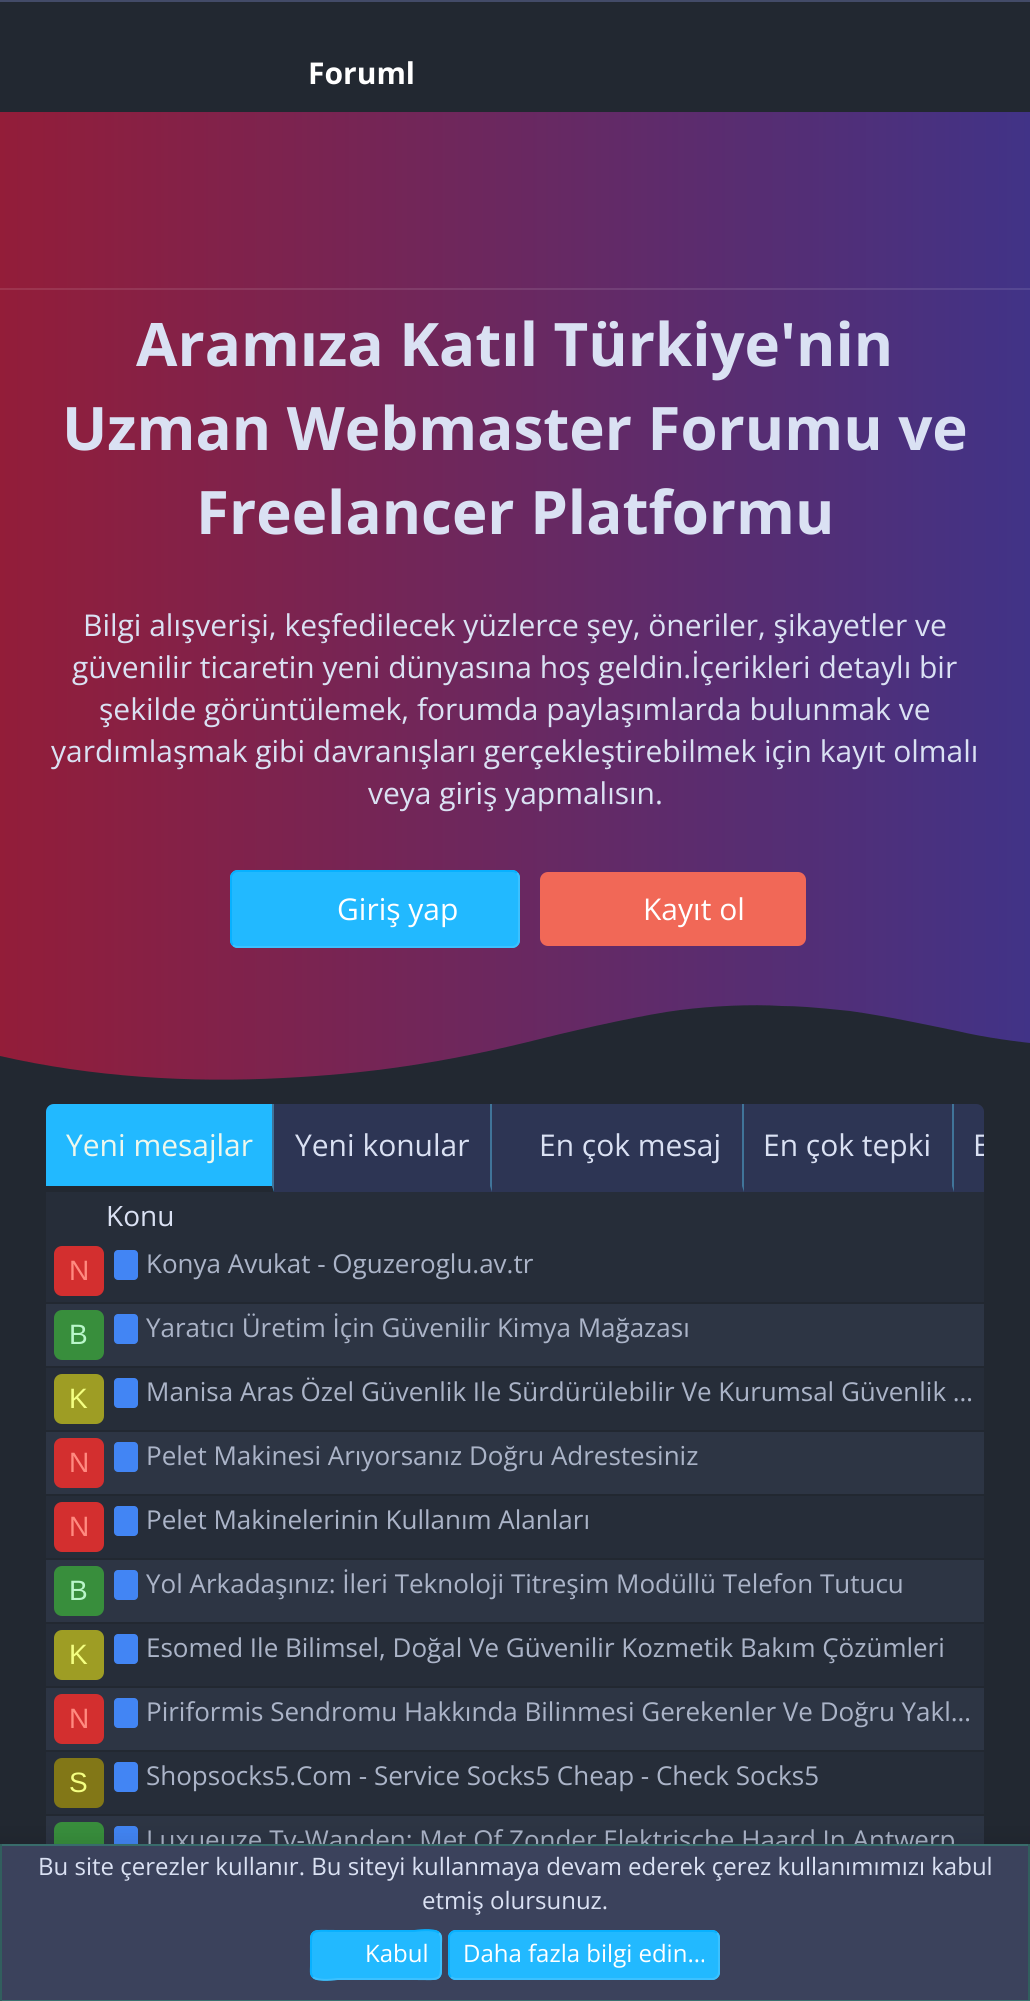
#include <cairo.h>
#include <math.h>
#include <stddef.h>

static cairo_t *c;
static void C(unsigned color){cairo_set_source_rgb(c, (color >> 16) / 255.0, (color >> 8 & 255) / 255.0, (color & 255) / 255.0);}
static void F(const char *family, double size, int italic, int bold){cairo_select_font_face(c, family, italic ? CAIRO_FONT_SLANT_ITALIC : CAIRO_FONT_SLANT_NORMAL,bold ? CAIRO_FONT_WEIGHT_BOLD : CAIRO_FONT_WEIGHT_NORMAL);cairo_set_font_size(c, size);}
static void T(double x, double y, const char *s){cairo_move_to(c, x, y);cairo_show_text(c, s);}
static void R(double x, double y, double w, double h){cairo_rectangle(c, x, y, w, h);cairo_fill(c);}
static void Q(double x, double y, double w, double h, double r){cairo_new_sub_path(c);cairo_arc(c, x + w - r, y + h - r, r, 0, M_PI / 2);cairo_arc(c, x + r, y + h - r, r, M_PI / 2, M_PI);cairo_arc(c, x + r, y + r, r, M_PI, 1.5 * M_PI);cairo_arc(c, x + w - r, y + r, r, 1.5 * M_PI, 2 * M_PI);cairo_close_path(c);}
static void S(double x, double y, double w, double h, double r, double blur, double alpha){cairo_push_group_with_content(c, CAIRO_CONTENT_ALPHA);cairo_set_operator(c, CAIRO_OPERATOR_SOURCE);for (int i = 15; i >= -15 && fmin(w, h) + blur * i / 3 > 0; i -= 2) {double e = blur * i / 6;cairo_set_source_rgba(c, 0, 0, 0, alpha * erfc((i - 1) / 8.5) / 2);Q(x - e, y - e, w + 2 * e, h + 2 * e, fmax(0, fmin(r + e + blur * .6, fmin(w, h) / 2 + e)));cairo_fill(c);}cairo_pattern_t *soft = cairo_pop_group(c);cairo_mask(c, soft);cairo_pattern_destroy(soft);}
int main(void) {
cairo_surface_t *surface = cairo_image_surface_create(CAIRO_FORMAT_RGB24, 1030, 2001);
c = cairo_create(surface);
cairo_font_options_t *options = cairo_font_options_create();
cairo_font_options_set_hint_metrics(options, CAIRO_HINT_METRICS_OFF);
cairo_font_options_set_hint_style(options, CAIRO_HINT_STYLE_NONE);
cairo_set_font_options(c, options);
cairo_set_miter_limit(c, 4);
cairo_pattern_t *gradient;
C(0x222831);
cairo_paint(c);
C(0x434b68);
R(0,0,1030,2);
F("Open Sans",30,0,1);
C(0xffffff);
T(308,84,"Foruml");
gradient = cairo_pattern_create_linear(0,598,1030,598);
cairo_pattern_add_color_stop_rgba(gradient,0,0.576,0.114,0.224,1);
cairo_pattern_add_color_stop_rgba(gradient,1,0.255,0.2,0.529,1);
cairo_set_source(c,gradient);
cairo_pattern_destroy(gradient);
R(0,112,1030,968);
gradient = cairo_pattern_create_linear(0,598,1030,598);
cairo_pattern_add_color_stop_rgba(gradient,0,0.62,0.204,0.302,1);
cairo_pattern_add_color_stop_rgba(gradient,1,0.329,0.278,0.576,1);
cairo_set_source(c,gradient);
cairo_pattern_destroy(gradient);
R(0,288,1030,2);
F("Open Sans",60,0,1);
C(0xdae1f3);
T(136,366,"Aramıza Katıl Türkiye'nin");
T(62,450,"Uzman Webmaster Forumu ve");
T(196,534,"Freelancer Platformu");
F("Open Sans",30,0,0);
T(83,636,"Bilgi alışverişi, keşfedilecek yüzlerce şey, öneriler, şikayetler ve");
T(72,678,"güvenilir ticaretin yeni dünyasına hoş geldin.İçerikleri detaylı bir");
T(99,720,"şekilde görüntülemek, forumda paylaşımlarda bulunmak ve");
T(51,762,"yardımlaşmak gibi davranışları gerçekleştirebilmek için kayıt olmalı");
T(368,804,"veya giriş yapmalısın.");
C(0x22b9ff);
Q(230,870,290,78,8);
cairo_fill(c);
cairo_new_path(c);
cairo_move_to(c,517,873);
cairo_curve_to(c,518.5,874.5,519,876,519,878);
cairo_line_to(c,519,940);
cairo_curve_to(c,519,942,518.5,943.5,517,945);
cairo_curve_to(c,515.5,946.5,514,947,512,947);
cairo_line_to(c,238,947);
cairo_curve_to(c,236,947,234.5,946.5,233,945);
C(0x3cc1ff);
cairo_stroke(c);
cairo_new_path(c);
cairo_move_to(c,233,945);
cairo_curve_to(c,231.5,943.5,231,942,231,940);
cairo_line_to(c,231,878);
cairo_curve_to(c,231,876,231.5,874.5,233,873);
cairo_curve_to(c,234.5,871.5,236,871,238,871);
cairo_line_to(c,512,871);
cairo_curve_to(c,514,871,515.5,871.5,517,873);
C(0x08b1ff);
cairo_stroke(c);
C(0xffffff);
T(337,920,"Giriş yap");
C(0xf16857);
Q(540,872,266,74,8);
cairo_fill(c);
C(0xffffff);
T(643,920,"Kayıt ol");
C(0x222831);
cairo_new_path(c);
cairo_move_to(c,283,1078);
cairo_curve_to(c,364,1074,441,1064,544,1038);
cairo_curve_to(c,584,1028,648,1014,680,1010);
cairo_curve_to(c,712,1006,751,1004,782,1006);
cairo_curve_to(c,796,1006,812,1007,850,1011);
cairo_curve_to(c,886,1016,928,1025,957,1031);
cairo_curve_to(c,1013,1044,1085,1049,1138,1049);
cairo_curve_to(c,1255,1051,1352,1025,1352,1025);
cairo_line_to(c,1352,1084);
cairo_line_to(c,0,1084);
cairo_line_to(c,0,1056);
cairo_curve_to(c,92,1077,190,1083,283,1078);
cairo_close_path(c);
cairo_fill(c);
C(0x262d39);
Q(46,1104,938,796,8);
cairo_fill(c);
C(0x2d3554);
cairo_new_path(c);
cairo_move_to(c,54,1104);
cairo_line_to(c,976,1104);
cairo_curve_to(c,980.5,1104,984,1107.5,984,1112);
cairo_line_to(c,984,1192);
cairo_line_to(c,46,1192);
cairo_line_to(c,46,1112);
cairo_curve_to(c,46,1107.5,49.5,1104,54,1104);
cairo_close_path(c);
cairo_fill(c);
C(0x22b9ff);
cairo_new_path(c);
cairo_move_to(c,54,1104);
cairo_line_to(c,274,1104);
cairo_line_to(c,274,1192);
cairo_line_to(c,46,1192);
cairo_line_to(c,46,1112);
cairo_curve_to(c,46,1107.5,49.5,1104,54,1104);
cairo_close_path(c);
cairo_fill(c);
C(0x407499);
cairo_new_path(c);
cairo_move_to(c,274,1104);
cairo_line_to(c,274,1192);
cairo_line_to(c,272,1186);
cairo_line_to(c,272,1104);
cairo_close_path(c);
cairo_fill(c);
C(0x222831);
cairo_new_path(c);
cairo_move_to(c,274,1192);
cairo_line_to(c,46,1192);
cairo_line_to(c,46,1186);
cairo_line_to(c,272,1186);
cairo_close_path(c);
cairo_fill(c);
C(0xeef8ed);
T(66,1156,"Yeni mesajlar");
C(0x407499);
cairo_new_path(c);
cairo_move_to(c,492,1104);
cairo_line_to(c,492,1192);
cairo_line_to(c,490,1186);
cairo_line_to(c,490,1104);
cairo_close_path(c);
cairo_fill(c);
C(0xdae1f3);
T(295,1156,"Yeni konular");
C(0x407499);
cairo_new_path(c);
cairo_move_to(c,744,1104);
cairo_line_to(c,744,1192);
cairo_line_to(c,742,1186);
cairo_line_to(c,742,1104);
cairo_close_path(c);
cairo_fill(c);
C(0xdae1f3);
T(539,1156,"En çok mesaj");
C(0x407499);
cairo_new_path(c);
cairo_move_to(c,954,1104);
cairo_line_to(c,954,1192);
cairo_line_to(c,952,1186);
cairo_line_to(c,952,1104);
cairo_close_path(c);
cairo_fill(c);
C(0xdae1f3);
T(763,1156,"En çok tepki");
cairo_save(c);
cairo_rectangle(c,46,1104,938,88);
cairo_clip(c);
T(973,1156,"E");
cairo_restore(c);
F("Open Sans",28,0,0);
T(106,1226,"Konu");
C(0x222831);
R(46,1302,938,2);
C(0xd32f2f);
Q(54,1246,50,50,8);
cairo_fill(c);
F("Liberation Sans",28,0,0);
C(0xff8a80);
T(69,1280,"N");
C(0x4285f4);
Q(114,1250,24,30,4);
cairo_fill(c);
F("Open Sans",26,0,0);
C(0xabb4c8);
T(146,1273,"Konya Avukat - Oguzeroglu.av.tr");
C(0x2d3544);
R(46,1304,938,62);
C(0x222831);
R(46,1366,938,2);
C(0x388e3c);
Q(54,1310,50,50,8);
cairo_fill(c);
F("Liberation Sans",28,0,0);
C(0xb9f6ca);
T(69,1344,"B");
C(0x4285f4);
Q(114,1314,24,30,4);
cairo_fill(c);
F("Open Sans",26,0,0);
C(0xabb4c8);
T(146,1337,"Yaratıcı Üretim İçin Güvenilir Kimya Mağazası");
C(0x222831);
R(46,1430,938,2);
C(0x9e9d24);
Q(54,1374,50,50,8);
cairo_fill(c);
F("Liberation Sans",28,0,0);
C(0xf4ff81);
T(69,1408,"K");
C(0x4285f4);
Q(114,1378,24,30,4);
cairo_fill(c);
F("Open Sans",26,0,0);
C(0xabb4c8);
T(146,1401,"Manisa Aras Özel Güvenlik Ile Sürdürülebilir Ve Kurumsal Güvenlik …");
C(0x2d3544);
R(46,1432,938,62);
C(0x222831);
R(46,1494,938,2);
C(0xd32f2f);
Q(54,1438,50,50,8);
cairo_fill(c);
F("Liberation Sans",28,0,0);
C(0xff8a80);
T(69,1472,"N");
C(0x4285f4);
Q(114,1442,24,30,4);
cairo_fill(c);
F("Open Sans",26,0,0);
C(0xabb4c8);
T(146,1465,"Pelet Makinesi Arıyorsanız Doğru Adrestesiniz");
C(0x222831);
R(46,1558,938,2);
C(0xd32f2f);
Q(54,1502,50,50,8);
cairo_fill(c);
F("Liberation Sans",28,0,0);
C(0xff8a80);
T(69,1536,"N");
C(0x4285f4);
Q(114,1506,24,30,4);
cairo_fill(c);
F("Open Sans",26,0,0);
C(0xabb4c8);
T(146,1529,"Pelet Makinelerinin Kullanım Alanları");
C(0x2d3544);
R(46,1560,938,62);
C(0x222831);
R(46,1622,938,2);
C(0x388e3c);
Q(54,1566,50,50,8);
cairo_fill(c);
F("Liberation Sans",28,0,0);
C(0xb9f6ca);
T(69,1600,"B");
C(0x4285f4);
Q(114,1570,24,30,4);
cairo_fill(c);
F("Open Sans",26,0,0);
C(0xabb4c8);
T(146,1593,"Yol Arkadaşınız: İleri Teknoloji Titreşim Modüllü Telefon Tutucu");
C(0x222831);
R(46,1686,938,2);
C(0x9e9d24);
Q(54,1630,50,50,8);
cairo_fill(c);
F("Liberation Sans",28,0,0);
C(0xf4ff81);
T(69,1664,"K");
C(0x4285f4);
Q(114,1634,24,30,4);
cairo_fill(c);
F("Open Sans",26,0,0);
C(0xabb4c8);
T(146,1657,"Esomed Ile Bilimsel, Doğal Ve Güvenilir Kozmetik Bakım Çözümleri");
C(0x2d3544);
R(46,1688,938,62);
C(0x222831);
R(46,1750,938,2);
C(0xd32f2f);
Q(54,1694,50,50,8);
cairo_fill(c);
F("Liberation Sans",28,0,0);
C(0xff8a80);
T(69,1728,"N");
C(0x4285f4);
Q(114,1698,24,30,4);
cairo_fill(c);
F("Open Sans",26,0,0);
C(0xabb4c8);
T(146,1721,"Piriformis Sendromu Hakkında Bilinmesi Gerekenler Ve Doğru Yakl…");
C(0x222831);
R(46,1814,938,2);
C(0x827717);
Q(54,1758,50,50,8);
cairo_fill(c);
F("Liberation Sans",28,0,0);
C(0xf4ff81);
T(69,1792,"S");
C(0x4285f4);
Q(114,1762,24,30,4);
cairo_fill(c);
F("Open Sans",26,0,0);
C(0xabb4c8);
T(146,1785,"Shopsocks5.Com - Service Socks5 Cheap - Check Socks5");
C(0x2d3544);
R(46,1816,938,28);
C(0x388e3c);
Q(54,1822,50,50,8);
cairo_fill(c);
C(0x4285f4);
Q(114,1826,24,30,4);
cairo_fill(c);
C(0xabb4c8);
T(146,1849,"Luxueuze Tv-Wanden: Met Of Zonder Elektrische Haard In Antwerp");
C(0x000000);
S(-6,1838,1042,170,0,10,.1);
C(0x3b425c);
R(2,1846,1026,154);
C(0x386c6b);
R(0,1844,1030,2);
C(0x315f5e);
R(1028,1844,2,157);
C(0x3a706f);
R(0,2000,1030,1);
C(0x315f5e);
R(0,1844,2,157);
F("Open Sans",24,0,0);
C(0xdae1f3);
T(38,1875,"Bu site çerezler kullanır. Bu siteyi kullanmaya devam ederek çerez kullanımımızı kabul");
T(422,1909,"etmiş olursunuz.");
C(0x22b9ff);
Q(310,1930,132,50,8);
cairo_fill(c);
cairo_new_path(c);
cairo_move_to(c,439,1933);
cairo_curve_to(c,442,1936,441,1940,441,1943.5);
cairo_line_to(c,441,1955);
cairo_curve_to(c,441,1982.5,443.5,1979,414.5,1979);
cairo_line_to(c,337.5,1979);
cairo_curve_to(c,337,1979,318,1982,313,1977);
C(0x3cc1ff);
cairo_stroke(c);
cairo_new_path(c);
cairo_move_to(c,313,1977);
cairo_curve_to(c,310,1974,311,1970,311,1966.5);
cairo_line_to(c,311,1955);
cairo_curve_to(c,311,1927.5,308.5,1931,337.5,1931);
cairo_line_to(c,414.5,1931);
cairo_curve_to(c,415,1931,434,1928,439,1933);
C(0x08b1ff);
cairo_stroke(c);
C(0xffffff);
T(365,1962,"Kabul");
C(0x22b9ff);
Q(448,1930,272,50,8);
cairo_fill(c);
cairo_new_path(c);
cairo_move_to(c,717,1933);
cairo_curve_to(c,718.5,1934.5,719,1936,719,1938);
cairo_line_to(c,719,1972);
cairo_curve_to(c,719,1974,718.5,1975.5,717,1977);
cairo_curve_to(c,715.5,1978.5,714,1979,712,1979);
cairo_line_to(c,456,1979);
cairo_curve_to(c,454,1979,452.5,1978.5,451,1977);
C(0x3cc1ff);
cairo_stroke(c);
cairo_new_path(c);
cairo_move_to(c,451,1977);
cairo_curve_to(c,449.5,1975.5,449,1974,449,1972);
cairo_line_to(c,449,1938);
cairo_curve_to(c,449,1936,449.5,1934.5,451,1933);
cairo_curve_to(c,452.5,1931.5,454,1931,456,1931);
cairo_line_to(c,712,1931);
cairo_curve_to(c,714,1931,715.5,1931.5,717,1933);
C(0x08b1ff);
cairo_stroke(c);
C(0xffffff);
T(463,1962,"Daha fazla bilgi edin…");
cairo_surface_write_to_png(surface, "o.png");
cairo_font_options_destroy(options);
cairo_destroy(c);
cairo_surface_destroy(surface);
return 0;
}
